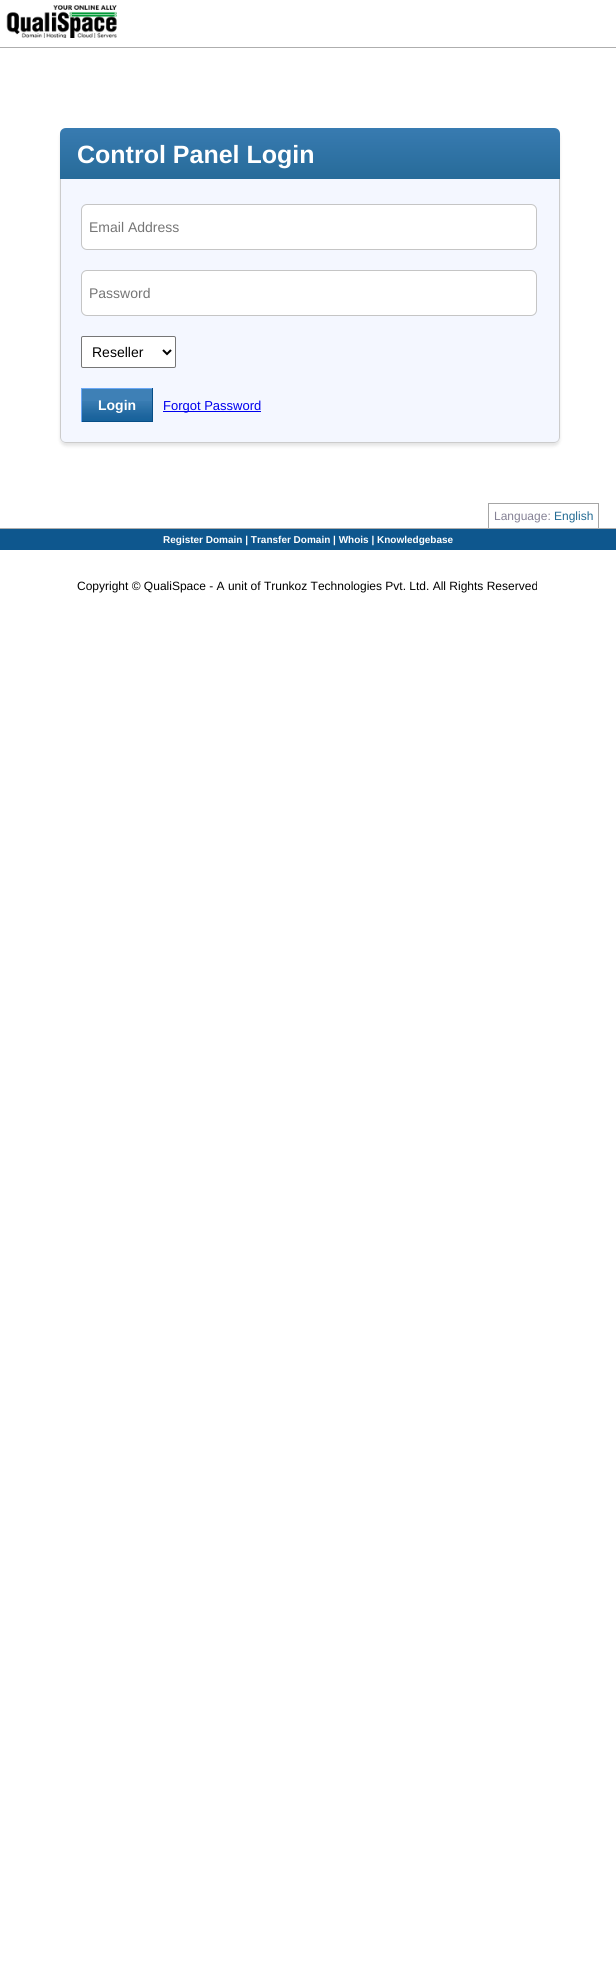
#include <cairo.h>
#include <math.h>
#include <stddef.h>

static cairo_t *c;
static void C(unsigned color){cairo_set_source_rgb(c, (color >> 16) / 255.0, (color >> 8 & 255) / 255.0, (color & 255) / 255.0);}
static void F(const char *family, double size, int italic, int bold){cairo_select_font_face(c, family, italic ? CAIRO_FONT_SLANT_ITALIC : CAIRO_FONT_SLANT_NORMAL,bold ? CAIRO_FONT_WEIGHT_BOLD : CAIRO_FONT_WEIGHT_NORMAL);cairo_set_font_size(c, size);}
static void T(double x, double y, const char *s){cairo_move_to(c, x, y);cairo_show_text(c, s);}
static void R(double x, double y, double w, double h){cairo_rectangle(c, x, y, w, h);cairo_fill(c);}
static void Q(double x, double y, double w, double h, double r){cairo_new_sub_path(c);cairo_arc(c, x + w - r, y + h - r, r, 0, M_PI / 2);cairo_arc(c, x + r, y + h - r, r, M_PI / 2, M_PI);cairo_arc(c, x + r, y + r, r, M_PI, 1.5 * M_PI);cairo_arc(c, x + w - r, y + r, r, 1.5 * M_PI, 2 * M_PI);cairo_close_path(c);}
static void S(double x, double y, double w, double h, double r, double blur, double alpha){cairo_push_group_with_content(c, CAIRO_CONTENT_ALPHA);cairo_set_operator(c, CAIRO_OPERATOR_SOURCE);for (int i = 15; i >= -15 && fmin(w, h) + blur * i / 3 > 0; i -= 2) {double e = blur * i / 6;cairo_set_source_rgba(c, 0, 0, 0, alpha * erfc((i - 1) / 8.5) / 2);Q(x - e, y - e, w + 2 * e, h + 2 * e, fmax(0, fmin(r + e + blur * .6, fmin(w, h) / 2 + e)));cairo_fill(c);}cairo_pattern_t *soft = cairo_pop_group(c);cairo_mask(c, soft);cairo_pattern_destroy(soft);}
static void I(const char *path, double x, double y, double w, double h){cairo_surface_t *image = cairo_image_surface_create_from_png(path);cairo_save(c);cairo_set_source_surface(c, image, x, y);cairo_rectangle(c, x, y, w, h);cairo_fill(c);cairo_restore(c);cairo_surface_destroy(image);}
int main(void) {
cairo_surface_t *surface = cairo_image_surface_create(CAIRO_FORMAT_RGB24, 616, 1983);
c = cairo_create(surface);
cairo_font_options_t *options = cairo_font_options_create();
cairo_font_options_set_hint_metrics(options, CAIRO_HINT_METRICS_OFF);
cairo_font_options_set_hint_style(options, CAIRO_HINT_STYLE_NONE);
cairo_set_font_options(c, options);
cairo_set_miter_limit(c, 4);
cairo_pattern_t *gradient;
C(0xffffff);
cairo_paint(c);
I("1.png",6,5,111,33);
C(0xaeaeae);
R(0,47,616,1);
C(0x000000);
S(60,131,500,315,6,1.5,.1);
gradient = cairo_pattern_create_linear(310,128,310,179);
cairo_pattern_add_color_stop_rgba(gradient,0,0.22,0.482,0.694,1);
cairo_pattern_add_color_stop_rgba(gradient,1,0.153,0.42,0.6,1);
cairo_set_source(c,gradient);
cairo_pattern_destroy(gradient);
cairo_new_path(c);
cairo_move_to(c,66,128);
cairo_line_to(c,554,128);
cairo_curve_to(c,557.5,128,560,130.5,560,134);
cairo_line_to(c,560,179);
cairo_line_to(c,60,179);
cairo_line_to(c,60,134);
cairo_curve_to(c,60,130.5,62.5,128,66,128);
cairo_close_path(c);
cairo_fill(c);
F("Liberation Sans",25,0,1);
C(0xffffff);
T(77,163,"Control Panel Login");
C(0xf4f7ff);
cairo_new_path(c);
cairo_move_to(c,60,179);
cairo_line_to(c,560,179);
cairo_line_to(c,560,437);
cairo_curve_to(c,560,440.5,557.5,443,554,443);
cairo_line_to(c,66,443);
cairo_curve_to(c,62.5,443,60,440.5,60,437);
cairo_close_path(c);
cairo_fill(c);
C(0xcccccc);
cairo_set_fill_rule(c,CAIRO_FILL_RULE_EVEN_ODD);
cairo_new_path(c);
cairo_move_to(c,60,179);
cairo_line_to(c,560,179);
cairo_line_to(c,560,437);
cairo_curve_to(c,560,440,557,443,554,443);
cairo_line_to(c,66,443);
cairo_curve_to(c,63,443,60,440,60,437);
cairo_close_path(c);
cairo_move_to(c,61,179);
cairo_line_to(c,559,179);
cairo_line_to(c,559,437);
cairo_curve_to(c,559,440,557,442,554,442);
cairo_line_to(c,66,442);
cairo_curve_to(c,63,442,61,440,61,437);
cairo_close_path(c);
cairo_fill(c);
C(0xffffff);
Q(81.5,204.5,455,45,5.5);
cairo_fill_preserve(c);
C(0xc5c5c5);
cairo_set_line_width(c,1);
cairo_stroke(c);
F("Liberation Sans",14,0,0);
C(0x757575);
T(89,232,"Email Address");
C(0xffffff);
Q(81.5,270.5,455,45,5.5);
cairo_fill_preserve(c);
C(0xc5c5c5);
cairo_stroke(c);
C(0x757575);
T(89,298,"Password");
C(0xffffff);
Q(81.5,336.5,94,31,1.5);
cairo_fill_preserve(c);
C(0x767676);
cairo_stroke(c);
cairo_new_path(c);
cairo_move_to(c,163,350);
cairo_line_to(c,167,354);
cairo_line_to(c,171,350);
C(0x000000);
cairo_set_line_width(c,2);
cairo_stroke(c);
T(92,357,"Reseller");
C(0x3e80b6);
R(82,389,70,12);
I("2.png",82,401,70,20);
C(0x6ba8f5);
R(81,388,72,1);
C(0x074e87);
R(152,388,1,34);
R(81,421,72,1);
C(0x6ba8f5);
R(81,388,1,34);
F("Liberation Sans",14,0,1);
C(0xffffff);
T(98,410,"Login");
C(0x0000ee);
R(163,411,98,1);
F("Liberation Sans",13,0,0);
T(163,410,"Forgot Password");
C(0xaeaeae);
R(0,528,616,1);
C(0xa6a6a6);
R(488,503,111,1);
R(598,503,1,25);
R(488,503,1,25);
F("Liberation Sans",12,0,0);
C(0x858295);
T(494,520,"Language:");
C(0x236b93);
T(554,520,"English");
C(0x0e578e);
R(0,529,616,21);
F("Liberation Sans",10,0,1);
C(0xffffff);
T(163,543,"Register Domain | Transfer Domain | Whois | Knowledgebase");
F("Liberation Sans",12,0,0);
C(0x000000);
T(77,590,"Copyright © QualiSpace - A unit of Trunkoz Technologies Pvt. Ltd. All Rights Reserved");
cairo_surface_write_to_png(surface, "o.png");
cairo_font_options_destroy(options);
cairo_destroy(c);
cairo_surface_destroy(surface);
return 0;
}
